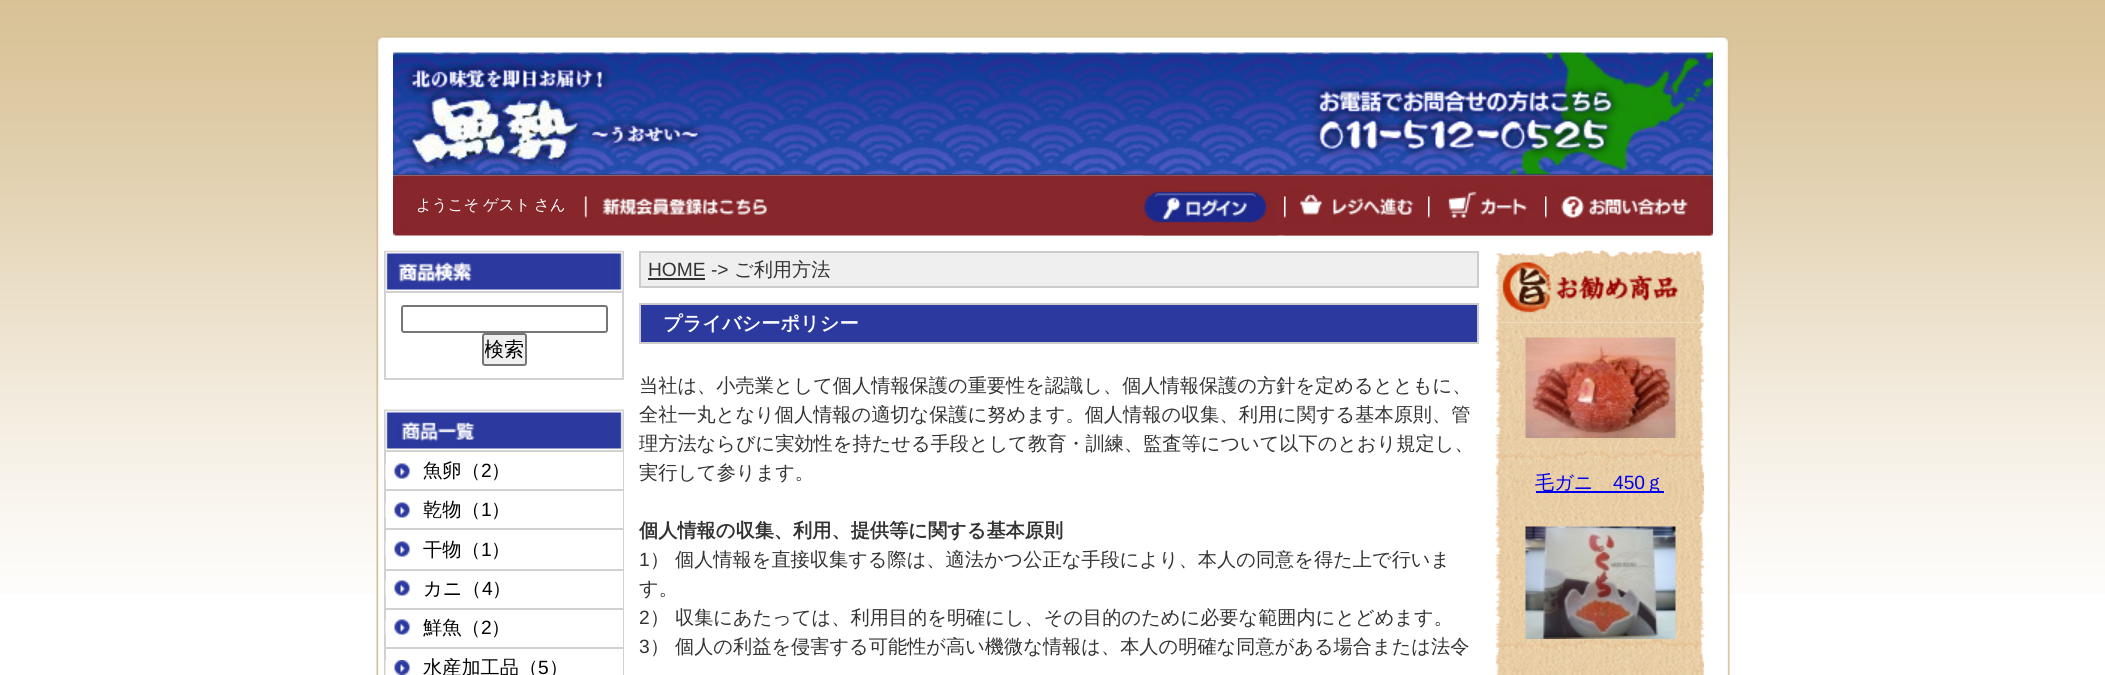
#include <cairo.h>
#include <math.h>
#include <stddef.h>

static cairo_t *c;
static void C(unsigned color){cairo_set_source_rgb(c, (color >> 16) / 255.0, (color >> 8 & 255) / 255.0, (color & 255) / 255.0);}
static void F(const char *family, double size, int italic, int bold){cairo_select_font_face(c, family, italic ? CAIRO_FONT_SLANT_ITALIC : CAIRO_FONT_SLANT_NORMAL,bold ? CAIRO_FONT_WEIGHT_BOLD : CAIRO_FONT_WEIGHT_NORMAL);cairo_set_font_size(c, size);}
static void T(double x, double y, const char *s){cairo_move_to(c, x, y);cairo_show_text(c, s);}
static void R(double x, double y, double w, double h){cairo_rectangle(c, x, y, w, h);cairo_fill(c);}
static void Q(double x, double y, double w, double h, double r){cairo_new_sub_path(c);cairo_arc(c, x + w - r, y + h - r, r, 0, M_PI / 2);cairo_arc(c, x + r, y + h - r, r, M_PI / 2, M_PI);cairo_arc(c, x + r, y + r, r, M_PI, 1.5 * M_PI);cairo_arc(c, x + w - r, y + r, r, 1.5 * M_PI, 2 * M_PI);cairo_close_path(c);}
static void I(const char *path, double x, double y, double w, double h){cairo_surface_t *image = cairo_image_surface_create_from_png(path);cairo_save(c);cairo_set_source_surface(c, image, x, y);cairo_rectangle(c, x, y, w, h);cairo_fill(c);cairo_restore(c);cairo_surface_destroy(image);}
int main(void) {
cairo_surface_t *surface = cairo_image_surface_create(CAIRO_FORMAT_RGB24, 2105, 675);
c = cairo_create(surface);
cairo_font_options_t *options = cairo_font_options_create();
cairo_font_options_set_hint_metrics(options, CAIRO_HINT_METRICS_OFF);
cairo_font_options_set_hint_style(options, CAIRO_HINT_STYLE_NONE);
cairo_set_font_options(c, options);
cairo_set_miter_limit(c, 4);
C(0xffffff);
cairo_paint(c);
I("1.png",0,0,2105,594);
I("2.png",376,36,1354,639);
I("3.png",393,52,1320,124);
I("4.png",393,175,1320,61);
F("WenQuanYi Zen Hei Medium",15.5,0,0);
C(0xffffff);
T(416,210,"ようこそ");
T(483,210,"ゲスト");
T(534,210,"さん");
I("5.png",584,196,183,22);
I("6.png",1143,175,135,61);
I("7.png",1284,175,144,61);
I("8.png",1428,175,117,61);
I("9.png",1545,175,168,61);
I("10.png",384,250,240,41);
cairo_rectangle(c,385,292,238,87);
C(0xd1d1d1);
cairo_stroke(c);
Q(402,306,205,26,2);
C(0x767676);
cairo_stroke(c);
C(0xefefef);
Q(483,334,43,31,2);
cairo_fill_preserve(c);
C(0x767676);
cairo_stroke(c);
cairo_save(c);
cairo_rectangle(c,485,336,39,27);
cairo_clip(c);
F("WenQuanYi Zen Hei Medium",20,0,0);
C(0x000000);
T(484,356,"検索");
cairo_restore(c);
I("11.png",384,409,240,41);
C(0xd1d1d1);
R(623,450,1,225);
R(384,450,2,225);
R(386,450,237,2);
R(386,489,237,2);
I("12.png",385,463,25,16);
F("WenQuanYi Zen Hei Medium",19.2,0,0);
C(0x000000);
T(423,477,"魚卵（");
F("Liberation Sans",19.2,0,0);
T(481,477,"2");
F("WenQuanYi Zen Hei Medium",19.2,0,0);
T(491,477,"）");
C(0xd1d1d1);
R(386,528,237,2);
I("12.png",385,502,25,16);
C(0x000000);
T(423,516,"乾物（");
F("Liberation Sans",19.2,0,0);
T(481,516,"1");
F("WenQuanYi Zen Hei Medium",19.2,0,0);
T(491,516,"）");
C(0xd1d1d1);
R(386,569,237,2);
I("12.png",385,541,25,16);
C(0x000000);
T(423,556,"干物（");
F("Liberation Sans",19.2,0,0);
T(481,556,"1");
F("WenQuanYi Zen Hei Medium",19.2,0,0);
T(491,556,"）");
C(0xd1d1d1);
R(386,608,237,2);
I("12.png",385,580,25,16);
C(0x000000);
T(423,595,"カニ（");
F("Liberation Sans",19.2,0,0);
T(482,595,"4");
F("WenQuanYi Zen Hei Medium",19.2,0,0);
T(492,595,"）");
C(0xd1d1d1);
R(386,647,237,2);
I("12.png",385,619,25,16);
C(0x000000);
T(423,634,"鮮魚（");
F("Liberation Sans",19.2,0,0);
T(481,634,"2");
F("WenQuanYi Zen Hei Medium",19.2,0,0);
T(491,634,"）");
I("13.png",385,660,25,15);
T(423,674,"水産加工品（");
F("Liberation Sans",19.2,0,0);
T(538,674,"5");
F("WenQuanYi Zen Hei Medium",19.2,0,0);
T(549,674,"）");
C(0xefefef);
cairo_rectangle(c,640,252,838,35);
cairo_fill_preserve(c);
C(0xcccccc);
cairo_stroke(c);
F("Liberation Sans",19.2,0,0);
C(0x333333);
T(648,276,"HOME ->");
R(648,278,57,2);
F("WenQuanYi Zen Hei Medium",19.2,0,0);
T(734,276,"ご利用方法");
C(0x2c399e);
cairo_rectangle(c,640,304,838,39);
cairo_fill_preserve(c);
C(0xcccccc);
cairo_stroke(c);
F("WenQuanYi Zen Hei",19.2,0,1);
C(0xffffff);
T(663,330,"プライバシーポリシー");
F("WenQuanYi Zen Hei Medium",19.2,0,0);
C(0x333333);
T(639,392,"当社は、小売業として個人情報保護の重要性を認識し、個人情報保護の方針を定めるとともに、");
T(639,421,"全社一丸となり個人情報の適切な保護に努めます。個人情報の収集、利用に関する基本原則、管");
T(639,450,"理方法ならびに実効性を持たせる手段として教育・訓練、監査等について以下のとおり規定し、");
T(639,479,"実行して参ります。");
F("WenQuanYi Zen Hei",19.2,0,1);
T(639,537,"個人情報の収集、利用、提供等に関する基本原則");
F("Liberation Sans",19.2,0,0);
T(639,566,"1");
F("WenQuanYi Zen Hei Medium",19.2,0,0);
T(650,566,"） 個人情報を直接収集する際は、適法かつ公正な手段により、本人の同意を得た上で行いま");
T(639,595,"す。");
F("Liberation Sans",19.2,0,0);
T(639,624,"2");
F("WenQuanYi Zen Hei Medium",19.2,0,0);
T(650,624,"） 収集にあたっては、利用目的を明確にし、その目的のために必要な範囲内にとどめます。");
F("Liberation Sans",19.2,0,0);
T(639,653,"3");
F("WenQuanYi Zen Hei Medium",19.2,0,0);
T(650,653,"） 個人の利益を侵害する可能性が高い機微な情報は、本人の明確な同意がある場合または法令");
I("15.png",1495,322,209,353);
I("14.png",1495,250,209,73);
I("16.png",1525,337,151,101);
C(0x0000ee);
R(1536,491,128,2);
T(1535,489,"毛ガニ");
F("Liberation Sans",19.2,0,0);
T(1613,489,"450");
F("WenQuanYi Zen Hei Medium",19.2,0,0);
T(1645,489,"ｇ");
I("17.png",1525,526,151,113);
cairo_surface_write_to_png(surface, "o.png");
cairo_font_options_destroy(options);
cairo_destroy(c);
cairo_surface_destroy(surface);
return 0;
}
